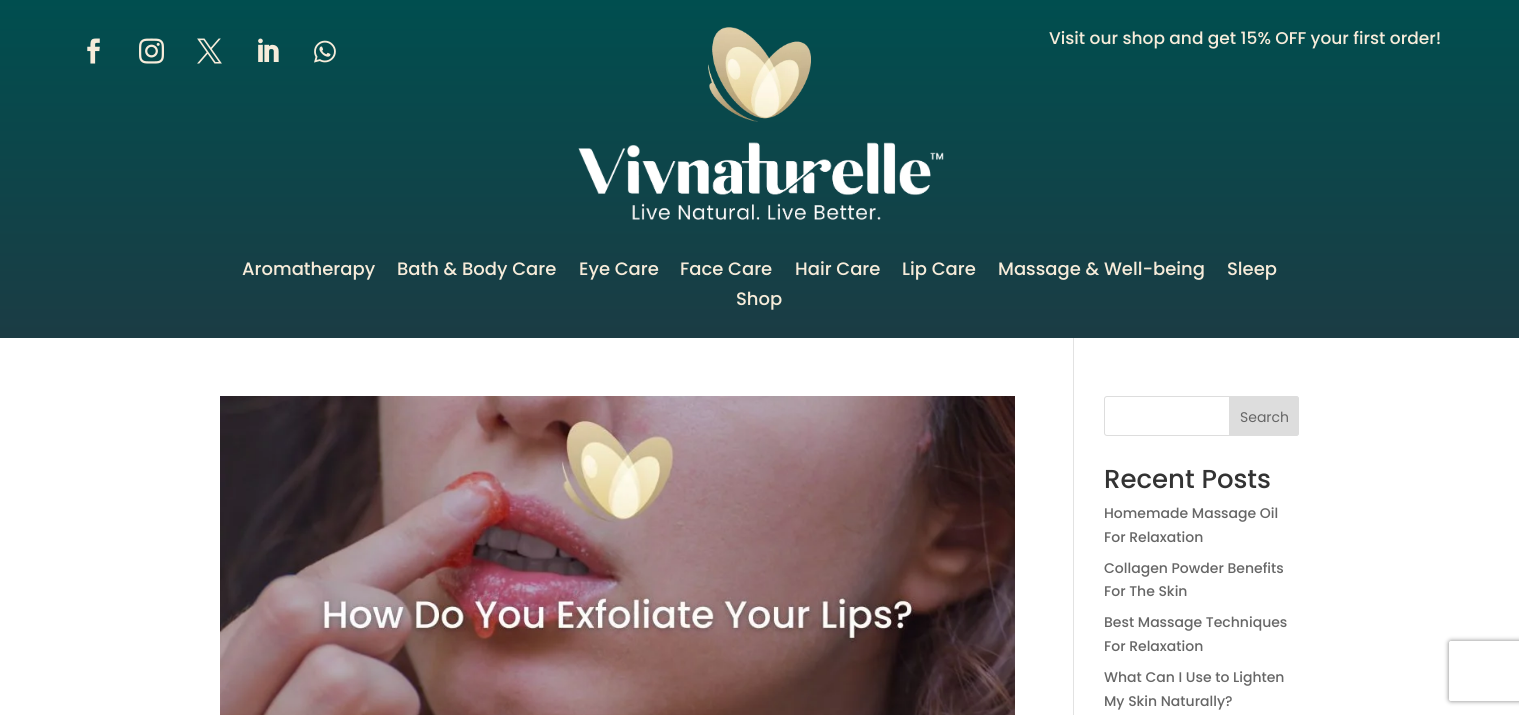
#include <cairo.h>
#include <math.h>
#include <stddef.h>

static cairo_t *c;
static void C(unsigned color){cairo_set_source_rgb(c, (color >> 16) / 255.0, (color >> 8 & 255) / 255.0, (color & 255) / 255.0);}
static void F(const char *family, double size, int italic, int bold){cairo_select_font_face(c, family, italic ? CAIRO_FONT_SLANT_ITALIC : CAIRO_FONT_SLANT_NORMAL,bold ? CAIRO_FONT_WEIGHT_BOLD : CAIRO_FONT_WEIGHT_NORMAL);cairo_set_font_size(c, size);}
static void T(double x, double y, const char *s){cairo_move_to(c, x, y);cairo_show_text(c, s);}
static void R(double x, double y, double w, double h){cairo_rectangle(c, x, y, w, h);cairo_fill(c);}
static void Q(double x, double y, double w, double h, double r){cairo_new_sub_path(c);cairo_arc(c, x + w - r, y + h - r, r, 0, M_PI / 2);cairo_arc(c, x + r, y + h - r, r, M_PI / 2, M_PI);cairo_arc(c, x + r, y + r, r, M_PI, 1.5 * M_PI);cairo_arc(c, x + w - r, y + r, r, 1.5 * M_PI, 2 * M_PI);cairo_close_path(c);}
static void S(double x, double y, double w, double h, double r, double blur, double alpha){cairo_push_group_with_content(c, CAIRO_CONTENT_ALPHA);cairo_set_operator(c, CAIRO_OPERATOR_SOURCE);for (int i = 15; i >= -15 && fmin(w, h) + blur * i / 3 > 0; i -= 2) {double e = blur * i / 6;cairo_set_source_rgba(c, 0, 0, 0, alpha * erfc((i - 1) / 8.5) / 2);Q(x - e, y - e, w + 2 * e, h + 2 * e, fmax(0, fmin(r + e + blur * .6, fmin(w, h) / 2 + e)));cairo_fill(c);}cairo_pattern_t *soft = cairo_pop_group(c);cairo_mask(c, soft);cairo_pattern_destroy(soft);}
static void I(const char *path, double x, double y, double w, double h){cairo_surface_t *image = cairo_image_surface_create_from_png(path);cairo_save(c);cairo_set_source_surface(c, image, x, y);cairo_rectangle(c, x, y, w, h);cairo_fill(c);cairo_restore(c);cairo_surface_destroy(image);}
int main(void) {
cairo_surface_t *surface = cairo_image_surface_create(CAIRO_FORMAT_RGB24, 1519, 715);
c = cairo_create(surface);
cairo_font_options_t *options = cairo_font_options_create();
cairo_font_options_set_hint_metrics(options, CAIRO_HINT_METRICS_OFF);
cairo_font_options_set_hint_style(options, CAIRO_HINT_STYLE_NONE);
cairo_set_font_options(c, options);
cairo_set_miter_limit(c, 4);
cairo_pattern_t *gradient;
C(0xffffff);
cairo_paint(c);
gradient = cairo_pattern_create_linear(760,0,760,338);
cairo_pattern_add_color_stop_rgba(gradient,0,0,0.306,0.31,1);
cairo_pattern_add_color_stop_rgba(gradient,1,0.106,0.235,0.267,1);
cairo_set_source(c,gradient);
cairo_pattern_destroy(gradient);
R(0,0,1519,338);
I("1.png",87,38,13,26);
I("2.png",139,38,25,26);
I("3.png",197,38,25,26);
I("4.png",258,38,21,24);
I("5.png",314,40,22,23);
I("6.png",708,27,103,95);
I("7.png",578,142,366,78);
F("Poppins Medium",17,0,0);
C(0xf7ecda);
T(1049,44,"Visit our shop and get 15% OFF your first order!");
F("Poppins Medium",18,0,0);
T(242,275,"Aromatherapy");
T(397,275,"Bath & Body Care");
T(579,275,"Eye Care");
T(680,275,"Face Care");
T(795,275,"Hair Care");
T(902,275,"Lip Care");
T(998,275,"Massage & Well-being");
T(1227,275,"Sleep");
T(736,305,"Shop");
C(0xe2e2e2);
R(1073,338,1,377);
I("8.png",220,396,795,319);
Q(1104.5,396.5,194,39,2.5);
C(0xdddddd);
cairo_set_line_width(c,1);
cairo_stroke(c);
cairo_new_path(c);
cairo_move_to(c,1229.5,396.5);
cairo_line_to(c,1296,396.5);
cairo_curve_to(c,1297.5,396.5,1298.5,397.5,1298.5,399);
cairo_line_to(c,1298.5,433);
cairo_curve_to(c,1298.5,434.5,1297.5,435.5,1296,435.5);
cairo_line_to(c,1229.5,435.5);
cairo_close_path(c);
cairo_fill_preserve(c);
cairo_stroke(c);
F("Poppins",14,0,0);
C(0x666666);
T(1240,422,"Search");
F("Poppins Medium",26,0,0);
C(0x333333);
T(1104,488,"Recent Posts");
F("Poppins Medium",14,0,0);
C(0x666666);
T(1104,518,"Homemade Massage Oil");
T(1104,542,"For Relaxation");
T(1104,573,"Collagen Powder Benefits");
T(1104,596,"For The Skin");
T(1104,627,"Best Massage Techniques");
T(1104,651,"For Relaxation");
T(1104,682,"What Can I Use to Lighten");
T(1104,706,"My Skin Naturally?");
cairo_save(c);
cairo_set_fill_rule(c,CAIRO_FILL_RULE_EVEN_ODD);
cairo_new_path(c);
cairo_move_to(c,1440,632);
cairo_line_to(c,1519,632);
cairo_line_to(c,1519,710);
cairo_line_to(c,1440,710);
cairo_close_path(c);
cairo_move_to(c,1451,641);
cairo_line_to(c,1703,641);
cairo_curve_to(c,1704,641,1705,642,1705,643);
cairo_line_to(c,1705,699);
cairo_curve_to(c,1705,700,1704,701,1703,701);
cairo_line_to(c,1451,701);
cairo_curve_to(c,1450,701,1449,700,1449,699);
cairo_line_to(c,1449,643);
cairo_curve_to(c,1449,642,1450,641,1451,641);
cairo_close_path(c);
cairo_clip(c);
C(0x808080);
S(1449,641,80,60,2,2.5,1);
cairo_restore(c);
cairo_surface_write_to_png(surface, "o.png");
cairo_font_options_destroy(options);
cairo_destroy(c);
cairo_surface_destroy(surface);
return 0;
}
